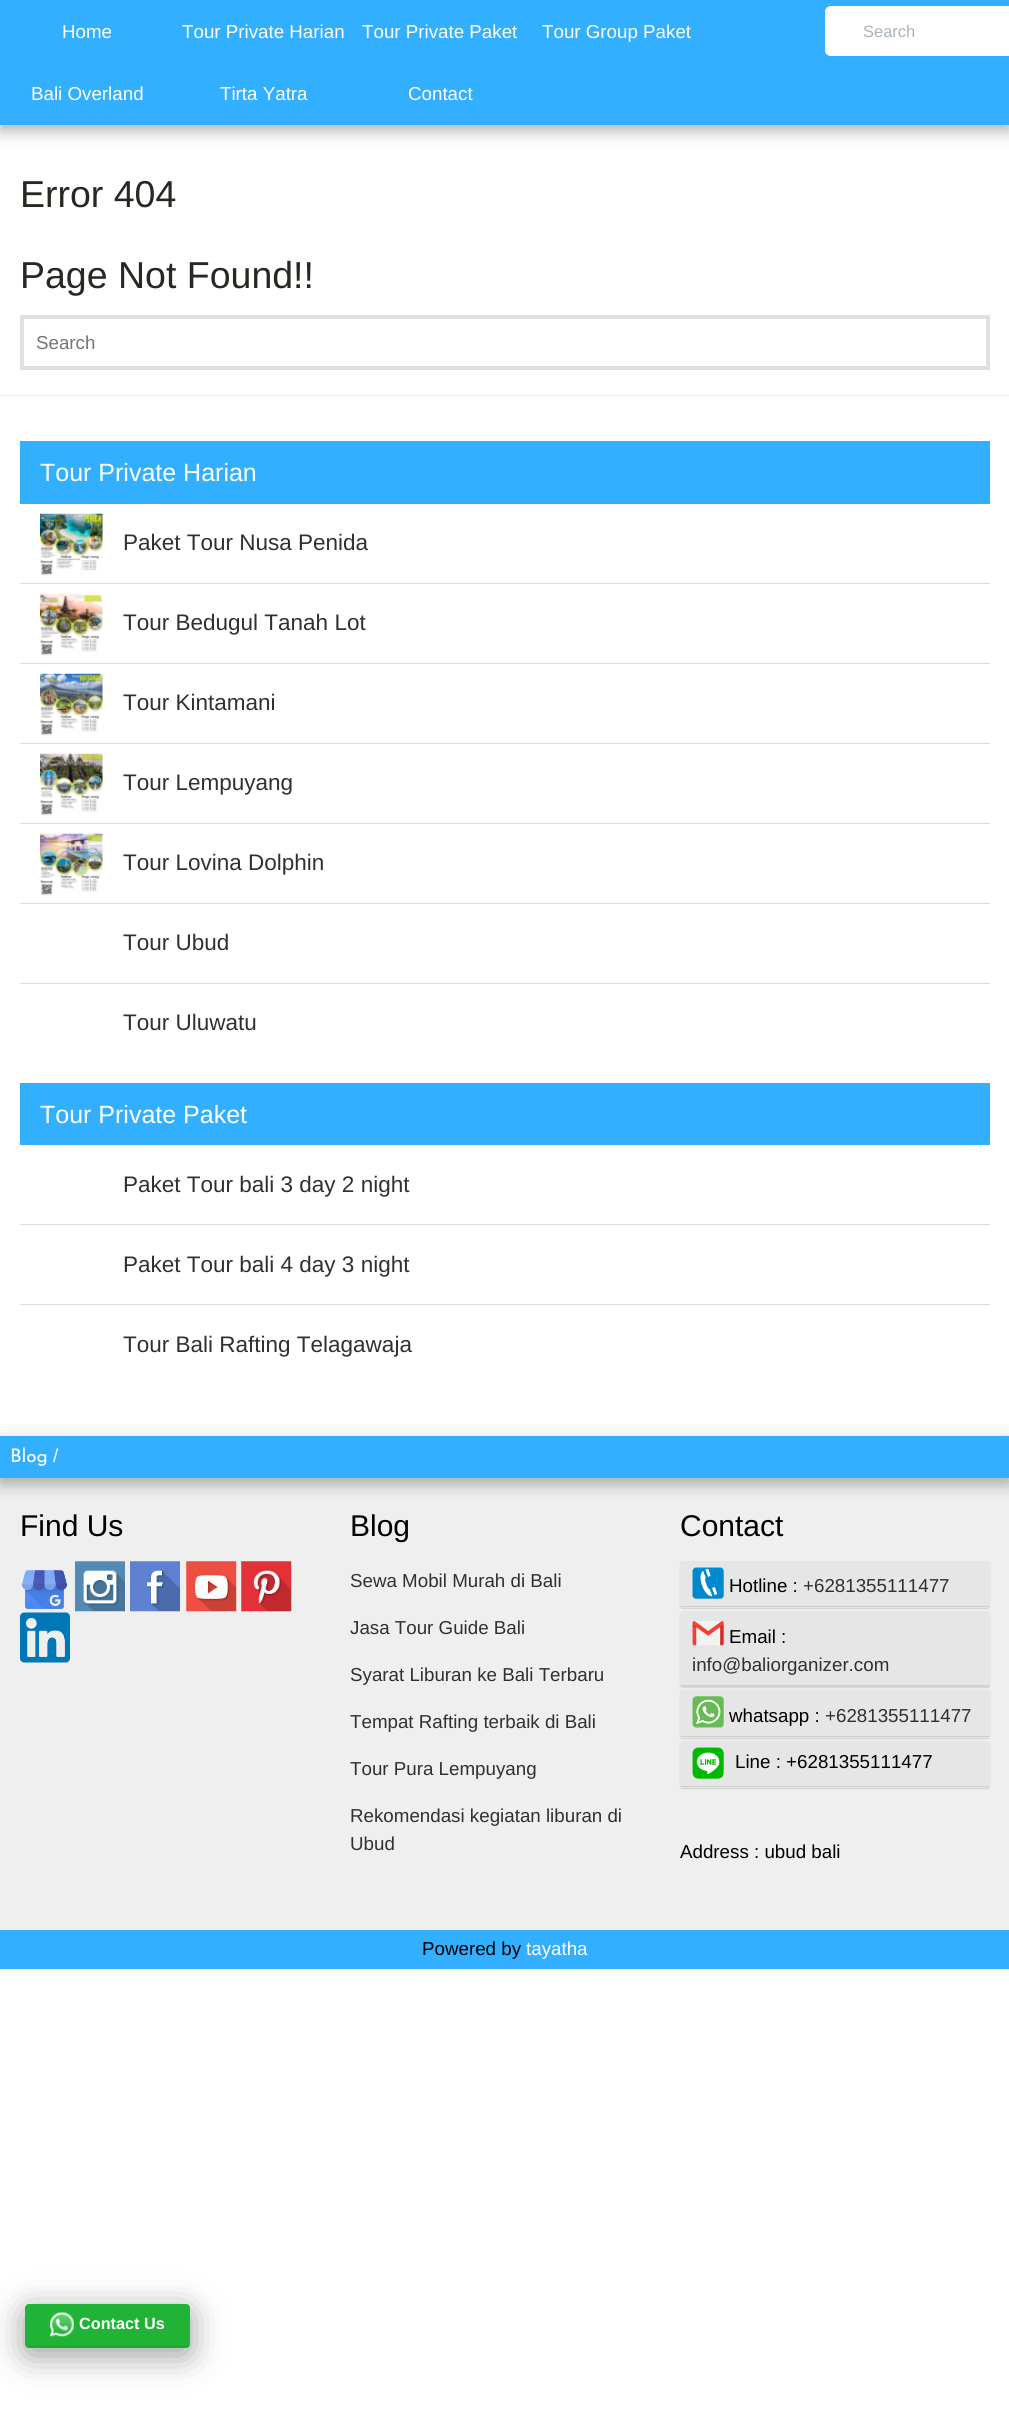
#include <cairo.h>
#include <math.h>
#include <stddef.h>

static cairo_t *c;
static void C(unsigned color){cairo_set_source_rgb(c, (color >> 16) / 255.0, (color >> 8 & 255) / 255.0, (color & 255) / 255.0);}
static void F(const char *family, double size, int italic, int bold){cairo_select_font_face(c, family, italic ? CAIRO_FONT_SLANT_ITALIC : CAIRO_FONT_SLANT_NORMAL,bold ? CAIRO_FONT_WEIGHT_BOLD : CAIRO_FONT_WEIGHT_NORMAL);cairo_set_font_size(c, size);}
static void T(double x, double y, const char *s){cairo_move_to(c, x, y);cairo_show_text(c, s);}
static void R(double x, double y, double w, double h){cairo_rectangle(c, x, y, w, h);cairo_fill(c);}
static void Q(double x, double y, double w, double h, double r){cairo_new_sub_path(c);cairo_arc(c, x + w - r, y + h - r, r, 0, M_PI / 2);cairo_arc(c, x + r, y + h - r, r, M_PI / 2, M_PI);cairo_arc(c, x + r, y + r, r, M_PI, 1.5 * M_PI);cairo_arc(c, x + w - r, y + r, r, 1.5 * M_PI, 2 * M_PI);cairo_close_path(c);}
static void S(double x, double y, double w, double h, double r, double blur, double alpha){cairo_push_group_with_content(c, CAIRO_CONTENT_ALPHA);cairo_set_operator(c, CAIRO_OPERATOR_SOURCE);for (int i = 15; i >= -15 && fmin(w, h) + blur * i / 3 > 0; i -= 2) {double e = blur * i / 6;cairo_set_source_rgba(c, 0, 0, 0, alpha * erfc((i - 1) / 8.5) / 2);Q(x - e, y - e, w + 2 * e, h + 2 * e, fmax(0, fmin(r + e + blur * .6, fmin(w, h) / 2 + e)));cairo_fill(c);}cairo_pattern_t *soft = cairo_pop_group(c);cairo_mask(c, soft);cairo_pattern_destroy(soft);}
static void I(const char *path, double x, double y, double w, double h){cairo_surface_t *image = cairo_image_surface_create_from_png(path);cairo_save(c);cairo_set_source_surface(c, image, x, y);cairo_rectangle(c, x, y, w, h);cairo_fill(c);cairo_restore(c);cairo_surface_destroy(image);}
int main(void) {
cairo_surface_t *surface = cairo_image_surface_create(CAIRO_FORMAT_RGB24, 1009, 2422);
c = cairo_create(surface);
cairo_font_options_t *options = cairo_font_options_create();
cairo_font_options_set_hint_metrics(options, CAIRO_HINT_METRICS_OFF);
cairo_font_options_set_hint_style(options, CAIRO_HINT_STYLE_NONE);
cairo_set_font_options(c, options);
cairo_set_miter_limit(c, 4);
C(0xffffff);
cairo_paint(c);
C(0x000000);
S(0,5,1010,125,0,9.5,.15);
S(0,6,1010,125,0,7,.18);
C(0x33afff);
R(0,0,1009,125);
F("Liberation Sans",18.75,0,0);
C(0xffffff);
T(62,38,"Home");
T(182,38,"Tour Private Harian");
T(362,38,"Tour Private Paket");
T(542,38,"Tour Group Paket");
cairo_new_path(c);
cairo_move_to(c,831,6);
cairo_line_to(c,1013,6);
cairo_line_to(c,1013,56);
cairo_line_to(c,831,56);
cairo_curve_to(c,827.5,56,825,53.5,825,50);
cairo_line_to(c,825,12);
cairo_curve_to(c,825,8.5,827.5,6,831,6);
cairo_close_path(c);
cairo_fill(c);
F("Liberation Sans",16.5,0,0);
C(0xabb2ba);
T(863,37,"Search");
F("Liberation Sans",18.75,0,0);
C(0xffffff);
T(31,100,"Bali Overland");
T(220,100,"Tirta Yatra");
T(408,100,"Contact");
C(0x000000);
S(25,2311,165,44,4,17,.4);
C(0x20b336);
Q(25,2304,165,44,4);
cairo_fill(c);
C(0x1aa02d);
R(28,2346,161,1);
I("1.png",50,2311,24,26);
F("Liberation Sans",16.25,0,1);
C(0xffffff);
T(79,2329,"Contact Us");
F("Liberation Sans",37.5,0,0);
C(0x272822);
T(20,207,"Error 404");
T(20,288,"Page Not Found!!");
cairo_rectangle(c,22,317,966,51);
C(0xe0e0e0);
cairo_set_line_width(c,4);
cairo_stroke(c);
F("Liberation Sans",18.75,0,0);
C(0x757575);
T(36,349,"Search");
C(0xeeeeee);
R(0,395,1009,1);
C(0x33afff);
R(20,441,970,63);
F("Liberation Sans",25,0,0);
C(0xffffff);
T(40,481,"Tour Private Harian");
C(0xdddddd);
R(20,583,970,1);
I("2.png",40,513,63,63);
F("Liberation Sans",22.5,0,0);
C(0x303031);
T(123,550,"Paket Tour Nusa Penida");
C(0xdddddd);
R(20,663,970,1);
I("3.png",40,593,63,63);
C(0x303031);
T(123,630,"Tour Bedugul Tanah Lot");
C(0xdddddd);
R(20,743,970,1);
I("4.png",40,673,63,63);
C(0x303031);
T(123,710,"Tour Kintamani");
C(0xdddddd);
R(20,823,970,1);
I("5.png",40,753,63,63);
C(0x303031);
T(123,790,"Tour Lempuyang");
C(0xdddddd);
R(20,903,970,1);
I("6.png",40,833,63,63);
C(0x303031);
T(123,870,"Tour Lovina Dolphin");
C(0xdddddd);
R(20,983,970,1);
C(0x303031);
T(123,950,"Tour Ubud");
T(123,1030,"Tour Uluwatu");
C(0x33afff);
R(20,1083,970,62);
F("Liberation Sans",25,0,0);
C(0xffffff);
T(40,1123,"Tour Private Paket");
C(0xdddddd);
R(20,1224,970,1);
F("Liberation Sans",22.5,0,0);
C(0x303031);
T(123,1192,"Paket Tour bali 3 day 2 night");
C(0xdddddd);
R(20,1304,970,1);
C(0x303031);
T(123,1272,"Paket Tour bali 4 day 3 night");
T(123,1352,"Tour Bali Rafting Telagawaja");
C(0xefefef);
R(0,1478,1009,452);
C(0x000000);
S(0,1441,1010,42,0,9.5,.15);
S(0,1443,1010,41,0,7,.18);
C(0x33afff);
R(0,1436,1009,42);
F("Josefin Sans",18.75,0,0);
C(0xffffff);
T(10,1462,"Blog");
F("Liberation Sans",18.75,0,0);
T(53,1462,"/");
F("Liberation Sans",30,0,0);
C(0x000000);
T(20,1536,"Find Us");
I("7.png",21,1570,47,39);
I("8.png",75,1561,50,51);
I("9.png",130,1561,50,51);
I("10.png",186,1561,51,51);
I("11.png",241,1561,51,51);
I("12.png",20,1612,50,51);
T(350,1536,"Blog");
F("Liberation Sans",18.75,0,0);
C(0x303031);
T(350,1587,"Sewa Mobil Murah di Bali");
T(350,1634,"Jasa Tour Guide Bali");
T(350,1681,"Syarat Liburan ke Bali Terbaru");
T(350,1728,"Tempat Rafting terbaik di Bali");
T(350,1775,"Tour Pura Lempuyang");
T(350,1822,"Rekomendasi kegiatan liburan di");
T(350,1850,"Ubud");
F("Liberation Sans",30,0,0);
C(0x000000);
T(680,1536,"Contact");
C(0xc8c8c8);
S(680,1563,310,46,2.5,.5,.7);
C(0xe6e6e6);
Q(680,1561,310,47,2.5);
cairo_fill(c);
C(0xcecece);
R(681,1606,308,1);
I("13.png",692,1567,32,32);
F("Liberation Sans",18.75,0,0);
C(0x000000);
T(729,1592,"Hotline :");
C(0x303031);
T(803,1592,"+6281355111477");
C(0xc8c8c8);
S(680,1613,310,75,2.5,.5,.7);
C(0xe6e6e6);
Q(680,1611,310,75,2.5);
cairo_fill(c);
C(0xcecece);
R(681,1685,308,1);
I("14.png",692,1621,32,25);
C(0x000000);
T(729,1643,"Email :");
C(0x303031);
T(692,1671,"info@baliorganizer.com");
C(0xc8c8c8);
S(680,1691,310,48,2.5,.5,.7);
C(0xe6e6e6);
Q(680,1690,310,48,2.5);
cairo_fill(c);
C(0xcecece);
R(681,1736,308,1);
I("15.png",692,1696,32,32);
C(0x000000);
T(729,1722,"whatsapp :");
C(0x303031);
T(825,1722,"+6281355111477");
C(0xc8c8c8);
S(680,1743,310,46,2.5,.5,.7);
C(0xe6e6e6);
Q(680,1741,310,47,2.5);
cairo_fill(c);
C(0xcecece);
R(681,1786,308,1);
I("16.png",692,1747,32,32);
C(0x000000);
T(735,1768,"Line : +6281355111477");
T(680,1858,"Address : ubud bali");
C(0x33afff);
R(0,1930,1009,39);
C(0x000000);
T(422,1955,"Powered by");
C(0xffffff);
T(526,1955,"tayatha");
cairo_surface_write_to_png(surface, "o.png");
cairo_font_options_destroy(options);
cairo_destroy(c);
cairo_surface_destroy(surface);
return 0;
}
